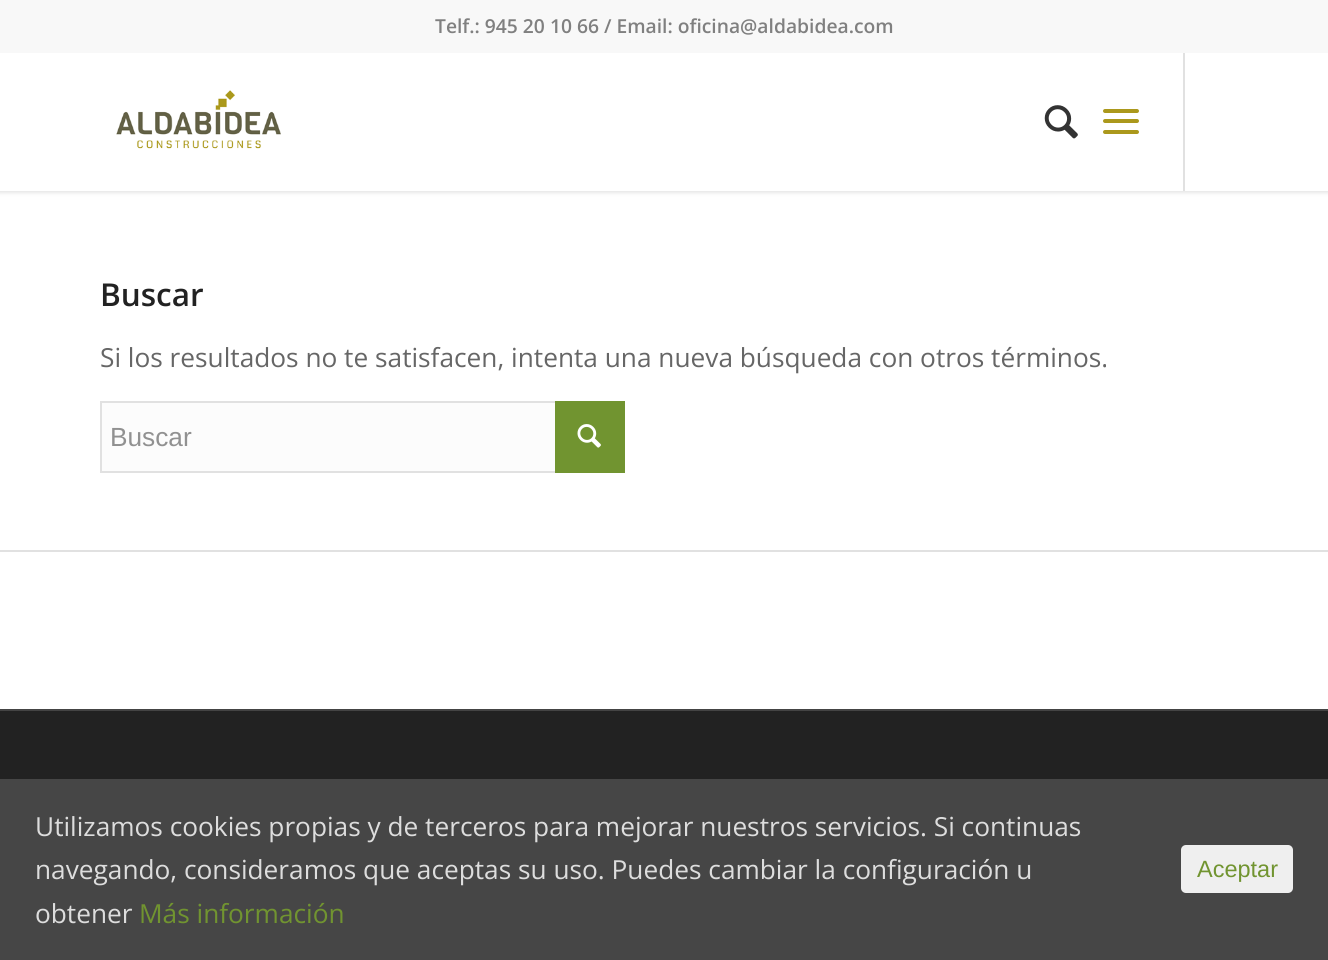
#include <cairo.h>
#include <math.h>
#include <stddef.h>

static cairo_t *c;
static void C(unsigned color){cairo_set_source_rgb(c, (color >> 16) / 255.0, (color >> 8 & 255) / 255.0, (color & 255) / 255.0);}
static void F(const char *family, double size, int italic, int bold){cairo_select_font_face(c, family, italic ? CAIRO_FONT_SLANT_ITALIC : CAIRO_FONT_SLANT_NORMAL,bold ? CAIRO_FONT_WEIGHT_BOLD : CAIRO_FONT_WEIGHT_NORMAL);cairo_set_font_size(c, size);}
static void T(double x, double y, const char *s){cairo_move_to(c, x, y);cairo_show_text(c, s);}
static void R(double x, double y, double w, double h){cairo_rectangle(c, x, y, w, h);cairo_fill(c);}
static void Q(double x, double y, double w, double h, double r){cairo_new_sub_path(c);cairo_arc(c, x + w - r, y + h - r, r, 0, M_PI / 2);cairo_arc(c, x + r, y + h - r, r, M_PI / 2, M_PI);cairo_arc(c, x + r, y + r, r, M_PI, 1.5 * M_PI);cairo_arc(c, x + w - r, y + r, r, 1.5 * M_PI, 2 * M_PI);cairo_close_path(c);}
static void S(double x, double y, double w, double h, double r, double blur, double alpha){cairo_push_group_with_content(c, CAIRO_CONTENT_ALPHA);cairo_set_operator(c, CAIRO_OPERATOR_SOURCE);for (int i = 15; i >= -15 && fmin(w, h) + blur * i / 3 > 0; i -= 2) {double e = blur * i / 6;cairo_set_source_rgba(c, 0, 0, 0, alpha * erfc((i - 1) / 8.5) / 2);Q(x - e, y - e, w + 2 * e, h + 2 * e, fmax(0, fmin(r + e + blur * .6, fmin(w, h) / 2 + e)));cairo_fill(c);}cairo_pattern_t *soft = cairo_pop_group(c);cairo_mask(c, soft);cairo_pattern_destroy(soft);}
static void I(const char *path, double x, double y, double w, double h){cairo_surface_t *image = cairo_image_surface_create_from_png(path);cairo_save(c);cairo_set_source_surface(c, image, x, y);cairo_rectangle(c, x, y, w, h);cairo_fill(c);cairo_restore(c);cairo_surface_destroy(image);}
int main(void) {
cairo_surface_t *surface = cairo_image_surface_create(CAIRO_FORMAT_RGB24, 1328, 960);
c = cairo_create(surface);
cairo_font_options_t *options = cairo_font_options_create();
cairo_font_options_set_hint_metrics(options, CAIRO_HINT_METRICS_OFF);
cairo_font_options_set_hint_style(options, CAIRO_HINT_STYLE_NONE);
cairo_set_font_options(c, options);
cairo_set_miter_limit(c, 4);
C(0xffffff);
cairo_paint(c);
C(0x000000);
S(-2,-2,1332,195,0,2,.1);
C(0xffffff);
R(0,53,1328,138);
C(0xe1e1e1);
R(1183,51,2,140);
C(0xf8f8f8);
R(0,0,1328,53);
F("Open Sans SemiBold",19.25,0,0);
C(0x808080);
T(435,33,"Telf.: 945 20 10 66 / Email: oficina@aldabidea.com");
I("1.png",116,90,165,59);
I("2.png",1044,105,34,34);
C(0xab981c);
Q(1103,119,36,4,2);
cairo_fill(c);
Q(1103,109,36,4,2);
cairo_fill(c);
Q(1103,130,36,4,2);
cairo_fill(c);
F("Open Sans SemiBold",31.5,0,0);
C(0x222222);
T(100,306,"Buscar");
F("Open Sans",26.25,0,0);
C(0x666666);
T(100,367,"Si los resultados no te satisfacen, intenta una nueva búsqueda con otros términos.");
C(0xfcfcfc);
R(102,403,453,68);
cairo_rectangle(c,101,402,523,70);
C(0xe1e1e1);
cairo_stroke(c);
F("Liberation Sans",26.25,0,0);
C(0x919191);
T(110,446,"Buscar");
C(0x719430);
R(555,401,70,72);
I("3.png",577,424,24,24);
C(0xe1e1e1);
R(0,550,1328,2);
C(0x222222);
R(0,711,1328,68);
C(0x444444);
R(0,709,1328,2);
C(0x464646);
R(0,779,1328,181);
F("Open Sans",26.25,0,0);
C(0xdddddd);
T(35,836,"Utilizamos cookies propias y de terceros para mejorar nuestros servicios. Si continuas");
T(35,879,"navegando, consideramos que aceptas su uso. Puedes cambiar la configuración u");
T(35,923,"obtener");
C(0x719430);
T(139,923,"Más información");
C(0xefefef);
Q(1181,845,112,48,5);
cairo_fill(c);
F("Liberation Sans",23.5,0,0);
C(0x719430);
T(1197,877,"Aceptar");
cairo_surface_write_to_png(surface, "o.png");
cairo_font_options_destroy(options);
cairo_destroy(c);
cairo_surface_destroy(surface);
return 0;
}
